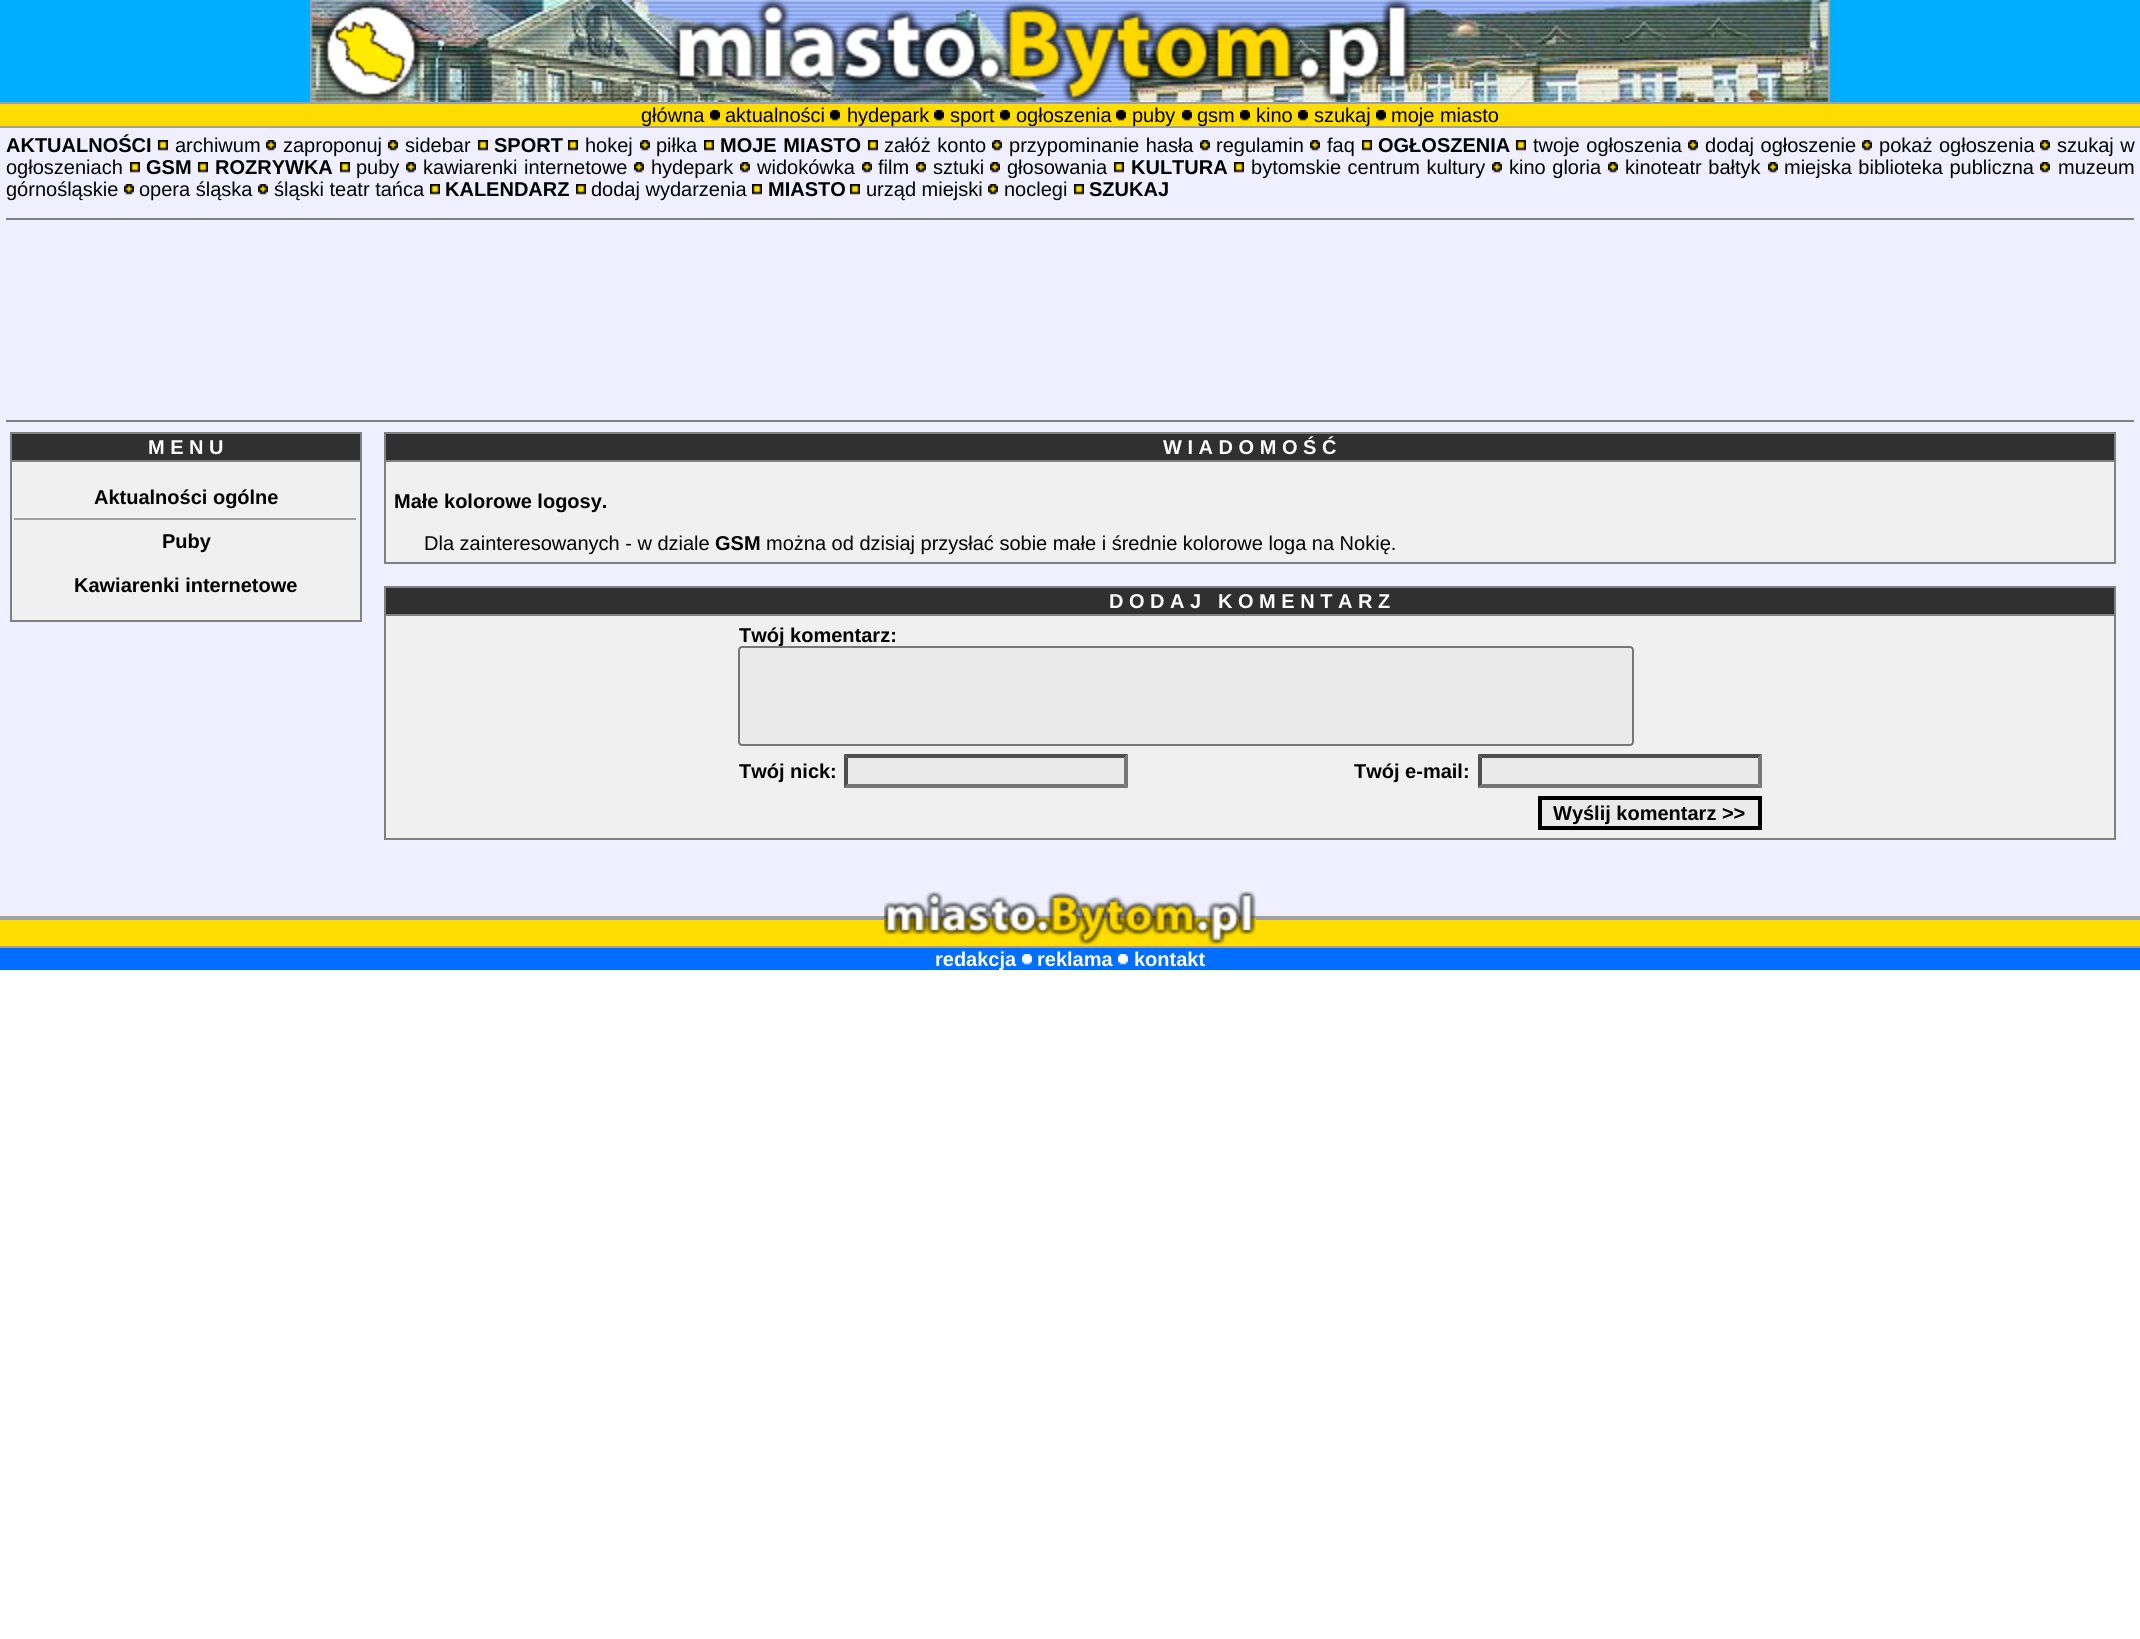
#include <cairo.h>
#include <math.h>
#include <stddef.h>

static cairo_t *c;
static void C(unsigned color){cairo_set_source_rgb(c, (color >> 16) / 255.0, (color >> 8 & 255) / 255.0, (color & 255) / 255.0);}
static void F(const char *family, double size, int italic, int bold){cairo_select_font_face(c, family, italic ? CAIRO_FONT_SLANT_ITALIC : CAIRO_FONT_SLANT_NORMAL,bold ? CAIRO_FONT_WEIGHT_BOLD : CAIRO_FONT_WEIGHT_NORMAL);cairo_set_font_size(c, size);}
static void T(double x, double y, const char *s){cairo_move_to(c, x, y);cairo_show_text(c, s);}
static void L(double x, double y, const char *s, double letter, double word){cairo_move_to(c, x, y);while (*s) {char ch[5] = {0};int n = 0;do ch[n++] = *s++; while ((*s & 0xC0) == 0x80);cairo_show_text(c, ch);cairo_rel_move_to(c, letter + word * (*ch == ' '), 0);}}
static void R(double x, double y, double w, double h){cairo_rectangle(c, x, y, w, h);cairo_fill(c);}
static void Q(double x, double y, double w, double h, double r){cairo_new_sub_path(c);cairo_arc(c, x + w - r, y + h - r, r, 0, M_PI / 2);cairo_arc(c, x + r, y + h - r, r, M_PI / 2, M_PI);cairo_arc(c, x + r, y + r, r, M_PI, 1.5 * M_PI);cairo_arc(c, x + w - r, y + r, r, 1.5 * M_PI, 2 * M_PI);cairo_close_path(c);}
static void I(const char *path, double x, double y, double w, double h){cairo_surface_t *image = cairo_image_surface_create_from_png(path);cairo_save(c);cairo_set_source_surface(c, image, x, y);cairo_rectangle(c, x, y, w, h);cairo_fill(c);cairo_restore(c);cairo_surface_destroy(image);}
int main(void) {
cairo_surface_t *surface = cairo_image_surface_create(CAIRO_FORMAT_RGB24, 2140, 1639);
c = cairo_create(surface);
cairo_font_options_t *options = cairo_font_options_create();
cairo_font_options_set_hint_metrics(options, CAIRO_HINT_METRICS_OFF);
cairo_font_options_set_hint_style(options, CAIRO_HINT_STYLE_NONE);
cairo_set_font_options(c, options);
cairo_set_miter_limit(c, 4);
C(0xffffff);
cairo_paint(c);
C(0x00aeff);
R(0,0,2140,102);
I("1.png",310,0,1520,102);
C(0xa0a0a0);
R(0,102,2140,2);
C(0xffdd00);
R(0,104,2140,22);
C(0xa0a0a0);
R(0,126,2140,2);
F("Liberation Sans",20,0,0);
C(0x000000);
T(641,122,"główna");
I("2.png",710,110,10,11);
T(725,122,"aktualności");
I("2.png",830,110,10,11);
T(847,122,"hydepark");
I("2.png",934,110,10,11);
T(950,122,"sport");
I("2.png",1000,110,10,11);
T(1016,122,"ogłoszenia");
I("2.png",1116,110,10,11);
T(1132,122,"puby");
I("2.png",1182,110,10,11);
T(1197,122,"gsm");
I("2.png",1240,110,10,11);
T(1256,122,"kino");
I("2.png",1298,110,10,11);
T(1314,122,"szukaj");
I("2.png",1376,110,10,11);
T(1391,122,"moje miasto");
C(0xefefff);
R(0,128,2140,762);
F("Liberation Sans",20,0,1);
C(0x000000);
T(6,152,"AKTUALNOŚCI");
I("3.png",158,140,10,11);
F("Liberation Sans",20,0,0);
T(175,152,"archiwum");
I("4.png",266,140,10,11);
T(283,152,"zaproponuj");
I("4.png",388,140,10,11);
T(405,152,"sidebar");
I("3.png",478,140,10,11);
F("Liberation Sans",20,0,1);
T(494,152,"SPORT");
I("3.png",568,140,10,11);
F("Liberation Sans",20,0,0);
T(585,152,"hokej");
I("4.png",640,140,10,11);
T(656,152,"piłka");
I("3.png",704,140,10,11);
F("Liberation Sans",20,0,1);
L(720,152,"MOJE MIASTO",0,1);
I("3.png",868,140,10,11);
F("Liberation Sans",20,0,0);
L(884,152,"załóż konto",0,1);
I("4.png",992,140,10,11);
L(1009,152,"przypominanie hasła",0,1);
I("4.png",1200,140,10,11);
T(1216,152,"regulamin");
I("4.png",1310,140,10,11);
T(1327,152,"faq");
I("3.png",1362,140,10,11);
F("Liberation Sans",20,0,1);
T(1378,152,"OGŁOSZENIA");
I("3.png",1516,140,10,11);
F("Liberation Sans",20,0,0);
L(1533,152,"twoje ogłoszenia",0,1);
I("4.png",1688,140,10,11);
L(1705,152,"dodaj ogłoszenie",0,1);
I("4.png",1862,140,10,11);
L(1879,152,"pokaż ogłoszenia",0,1);
I("4.png",2040,140,10,11);
L(2057,152,"szukaj w",0,1);
T(6,174,"ogłoszeniach");
I("3.png",130,162,10,11);
F("Liberation Sans",20,0,1);
T(146,174,"GSM");
I("3.png",198,162,10,11);
T(215,174,"ROZRYWKA");
I("3.png",340,162,10,11);
F("Liberation Sans",20,0,0);
T(356,174,"puby");
I("4.png",406,162,10,11);
L(423,174,"kawiarenki internetowe",0,1);
I("4.png",634,162,10,11);
T(651,174,"hydepark");
I("4.png",740,162,10,11);
T(757,174,"widokówka");
I("4.png",862,162,10,11);
T(878,174,"film");
I("4.png",916,162,10,11);
T(933,174,"sztuki");
I("4.png",990,162,10,11);
T(1007,174,"głosowania");
I("3.png",1114,162,10,11);
F("Liberation Sans",20,0,1);
T(1131,174,"KULTURA");
I("3.png",1234,162,10,11);
F("Liberation Sans",20,0,0);
L(1251,174,"bytomskie centrum kultury",0,1);
I("4.png",1492,162,10,11);
L(1509,174,"kino gloria",0,1);
I("4.png",1608,162,10,11);
L(1625,174,"kinoteatr bałtyk",0,1);
I("4.png",1768,162,10,11);
L(1784,174,"miejska biblioteka publiczna",0,1);
I("4.png",2040,162,10,11);
T(2058,174,"muzeum");
T(6,196,"górnośląskie");
I("4.png",124,184,10,11);
T(139,196,"opera śląska");
I("4.png",258,184,10,11);
T(274,196,"śląski teatr tańca");
I("3.png",430,184,10,11);
F("Liberation Sans",20,0,1);
T(445,196,"KALENDARZ");
I("3.png",576,184,10,11);
F("Liberation Sans",20,0,0);
T(591,196,"dodaj wydarzenia");
I("3.png",752,184,10,11);
F("Liberation Sans",20,0,1);
T(768,196,"MIASTO");
I("3.png",850,184,10,11);
F("Liberation Sans",20,0,0);
T(866,196,"urząd miejski");
I("4.png",988,184,10,11);
T(1004,196,"noclegi");
I("3.png",1074,184,10,11);
F("Liberation Sans",20,0,1);
T(1089,196,"SZUKAJ");
C(0x808080);
R(6,218,2128,2);
R(6,420,2128,2);
R(10,432,352,190);
C(0x303030);
R(12,434,348,26);
C(0xffffff);
T(148,454,"M E N U");
C(0xf0f0f0);
R(12,462,348,158);
C(0x000000);
T(94,504,"Aktualności ogólne");
C(0x9f9f9f);
R(14,518,344,2);
C(0xeeeeee);
R(356,518,2,2);
C(0x000000);
T(162,548,"Puby");
T(74,592,"Kawiarenki internetowe");
C(0x808080);
R(384,432,1732,132);
C(0x303030);
R(386,434,1728,26);
C(0xffffff);
T(1163,454,"W I A D O M O Ś Ć");
C(0xf0f0f0);
R(386,462,1728,100);
C(0x000000);
T(394,508,"Małe kolorowe logosy.");
F("Liberation Sans",20,0,0);
T(424,550,"Dla zainteresowanych - w dziale");
F("Liberation Sans",20,0,1);
T(715,550,"GSM");
F("Liberation Sans",20,0,0);
T(766,550,"można od dzisiaj przysłać sobie małe i średnie kolorowe loga na Nokię.");
C(0x808080);
R(384,586,1732,254);
C(0x303030);
R(386,588,1728,26);
F("Liberation Sans",20,0,1);
C(0xffffff);
T(1109,608,"D O D A J   K O M E N T A R Z");
C(0xf0f0f0);
R(386,616,1728,222);
C(0x000000);
T(739,642,"Twój komentarz:");
C(0xeaeaea);
Q(739,647,894,98,3);
cairo_fill_preserve(c);
C(0x767676);
cairo_stroke(c);
C(0x000000);
T(739,778,"Twój nick:");
C(0xeaeaea);
R(844,754,284,34);
C(0x4f4f4f);
cairo_new_path(c);
cairo_move_to(c,844,754);
cairo_line_to(c,1128,754);
cairo_line_to(c,1124,758);
cairo_line_to(c,848,758);
cairo_close_path(c);
cairo_fill(c);
C(0x767676);
cairo_new_path(c);
cairo_move_to(c,1128,754);
cairo_line_to(c,1128,788);
cairo_line_to(c,1124,784);
cairo_line_to(c,1124,758);
cairo_close_path(c);
cairo_fill(c);
cairo_new_path(c);
cairo_move_to(c,1128,788);
cairo_line_to(c,844,788);
cairo_line_to(c,848,784);
cairo_line_to(c,1124,784);
cairo_close_path(c);
cairo_fill(c);
C(0x4f4f4f);
cairo_new_path(c);
cairo_move_to(c,844,788);
cairo_line_to(c,844,754);
cairo_line_to(c,848,758);
cairo_line_to(c,848,784);
cairo_close_path(c);
cairo_fill(c);
C(0x000000);
T(1354,778,"Twój e-mail:");
C(0xeaeaea);
R(1478,754,284,34);
C(0x4f4f4f);
cairo_new_path(c);
cairo_move_to(c,1478,754);
cairo_line_to(c,1762,754);
cairo_line_to(c,1758,758);
cairo_line_to(c,1482,758);
cairo_close_path(c);
cairo_fill(c);
C(0x767676);
cairo_new_path(c);
cairo_move_to(c,1762,754);
cairo_line_to(c,1762,788);
cairo_line_to(c,1758,784);
cairo_line_to(c,1758,758);
cairo_close_path(c);
cairo_fill(c);
cairo_new_path(c);
cairo_move_to(c,1762,788);
cairo_line_to(c,1478,788);
cairo_line_to(c,1482,784);
cairo_line_to(c,1758,784);
cairo_close_path(c);
cairo_fill(c);
C(0x4f4f4f);
cairo_new_path(c);
cairo_move_to(c,1478,788);
cairo_line_to(c,1478,754);
cairo_line_to(c,1482,758);
cairo_line_to(c,1482,784);
cairo_close_path(c);
cairo_fill(c);
C(0xeaeaea);
cairo_rectangle(c,1540,798,220,30);
cairo_fill_preserve(c);
C(0x000000);
cairo_set_line_width(c,4);
cairo_stroke(c);
T(1553,820,"Wyślij komentarz >>");
C(0xefefff);
R(0,890,884,26);
R(884,890,372,1);
I("5.png",884,891,372,55);
R(1256,890,884,26);
C(0xa0a0a0);
R(0,916,884,4);
R(1256,916,884,4);
C(0xffdd00);
R(0,920,884,26);
R(1256,920,884,26);
C(0xa0a0a0);
R(0,946,2140,2);
C(0x006eff);
R(0,948,2140,22);
C(0xffffff);
T(935,966,"redakcja");
I("6.png",1022,954,10,11);
T(1037,966,"reklama");
I("6.png",1118,954,10,11);
T(1134,966,"kontakt");
cairo_surface_write_to_png(surface, "o.png");
cairo_font_options_destroy(options);
cairo_destroy(c);
cairo_surface_destroy(surface);
return 0;
}
